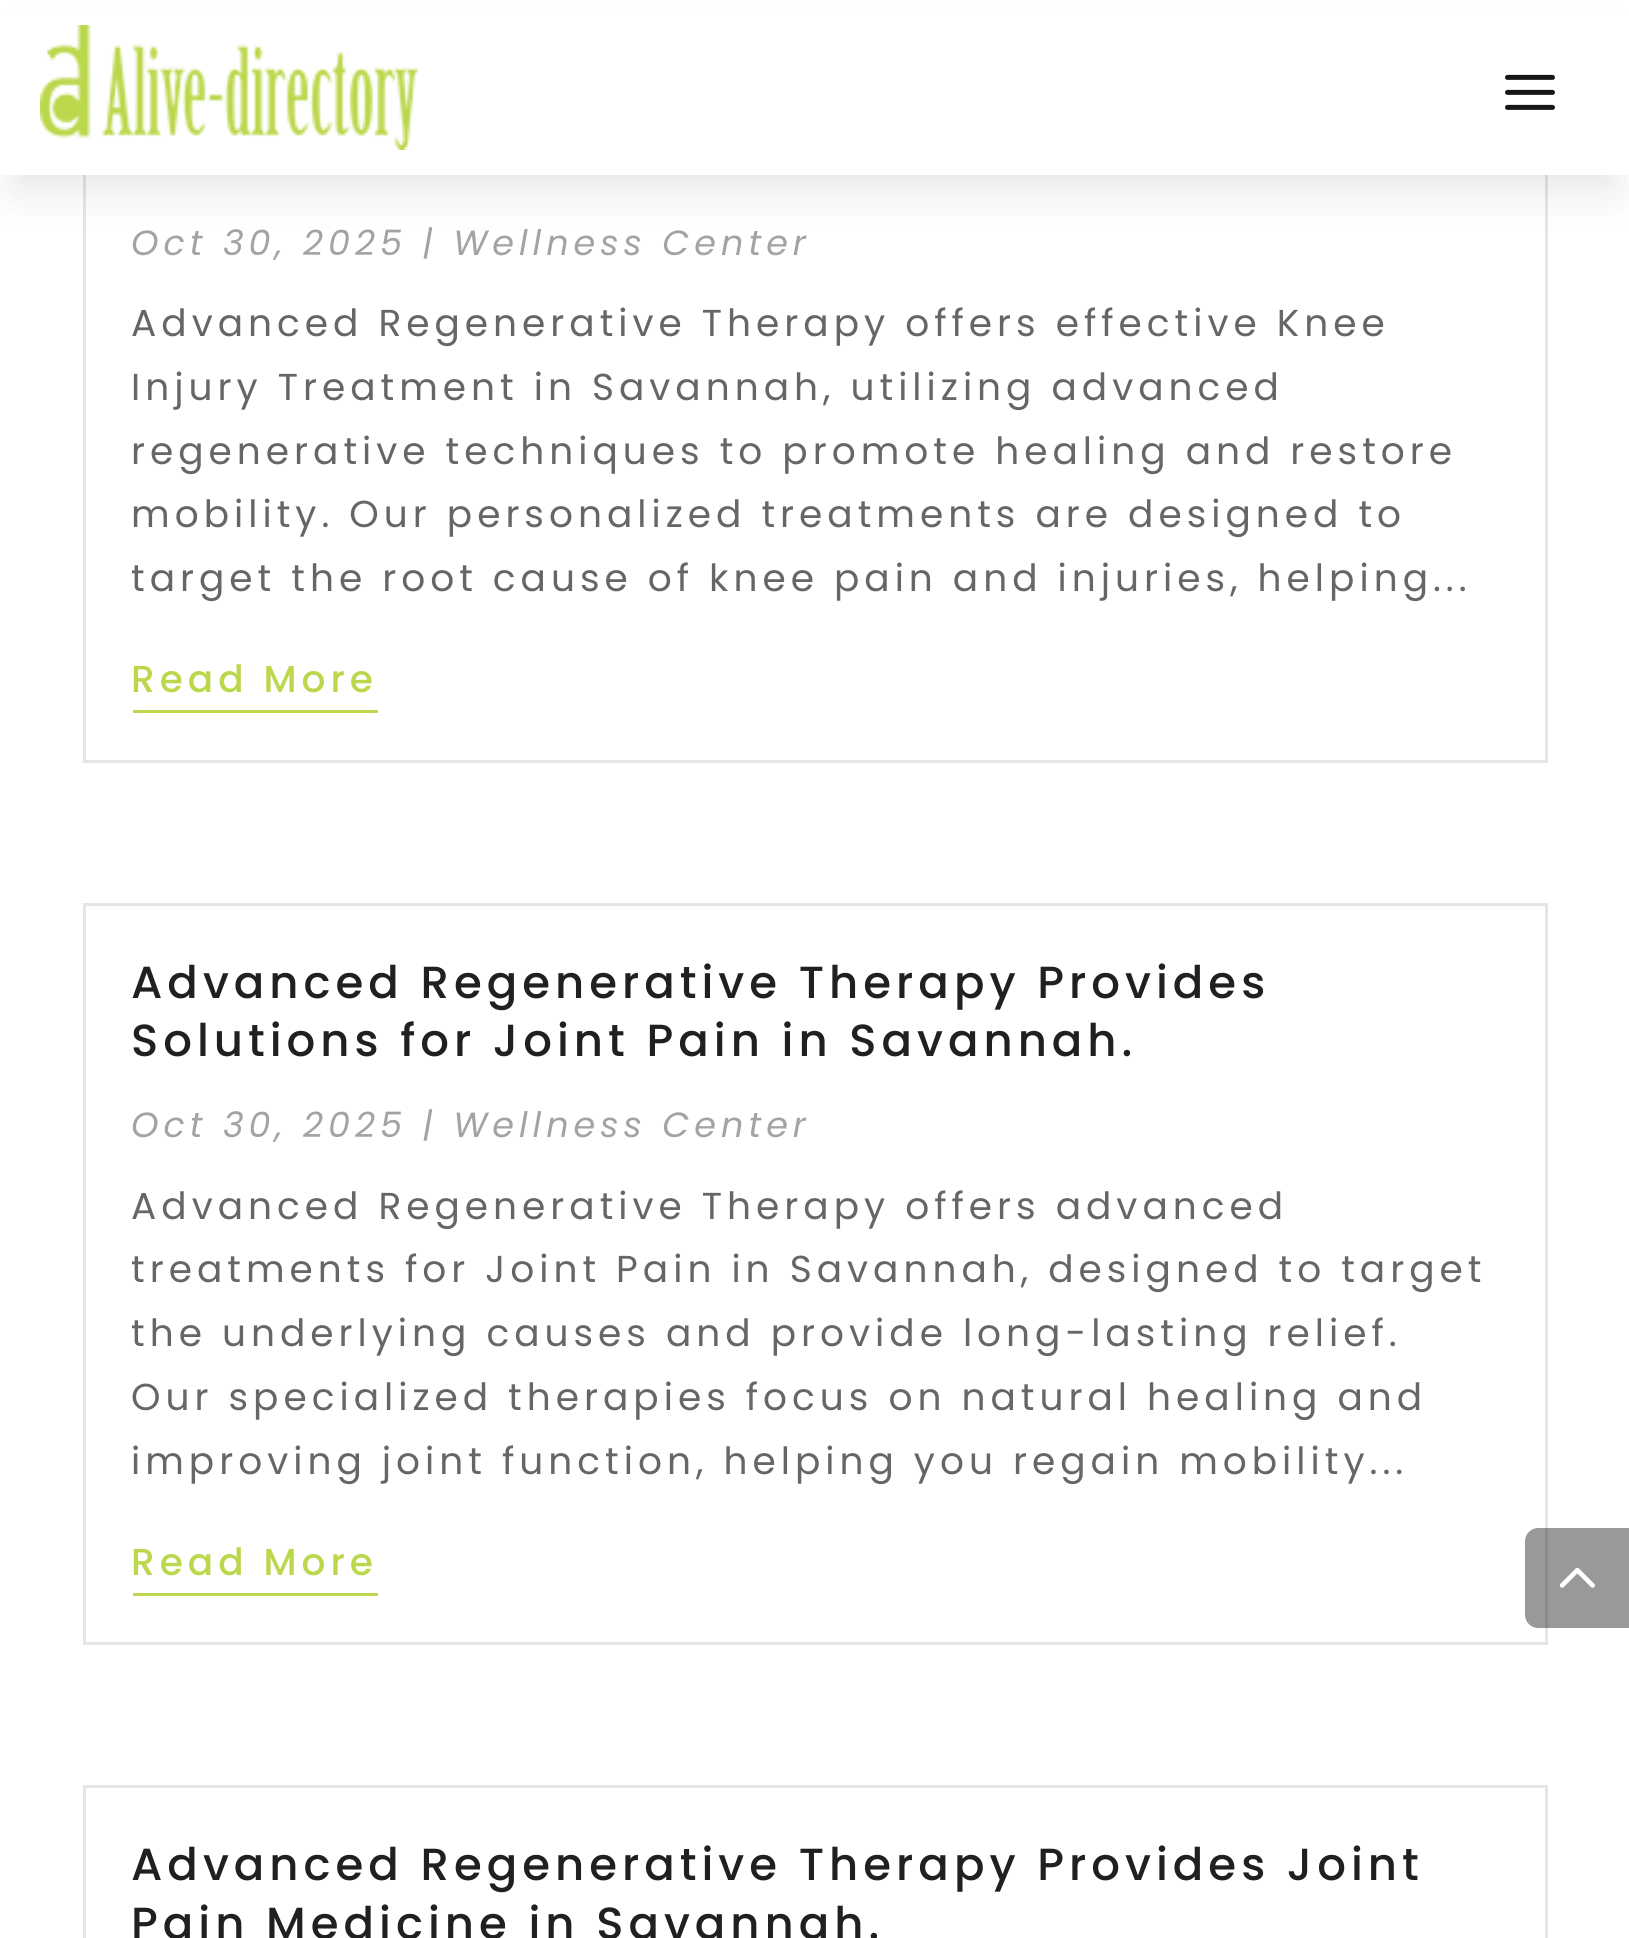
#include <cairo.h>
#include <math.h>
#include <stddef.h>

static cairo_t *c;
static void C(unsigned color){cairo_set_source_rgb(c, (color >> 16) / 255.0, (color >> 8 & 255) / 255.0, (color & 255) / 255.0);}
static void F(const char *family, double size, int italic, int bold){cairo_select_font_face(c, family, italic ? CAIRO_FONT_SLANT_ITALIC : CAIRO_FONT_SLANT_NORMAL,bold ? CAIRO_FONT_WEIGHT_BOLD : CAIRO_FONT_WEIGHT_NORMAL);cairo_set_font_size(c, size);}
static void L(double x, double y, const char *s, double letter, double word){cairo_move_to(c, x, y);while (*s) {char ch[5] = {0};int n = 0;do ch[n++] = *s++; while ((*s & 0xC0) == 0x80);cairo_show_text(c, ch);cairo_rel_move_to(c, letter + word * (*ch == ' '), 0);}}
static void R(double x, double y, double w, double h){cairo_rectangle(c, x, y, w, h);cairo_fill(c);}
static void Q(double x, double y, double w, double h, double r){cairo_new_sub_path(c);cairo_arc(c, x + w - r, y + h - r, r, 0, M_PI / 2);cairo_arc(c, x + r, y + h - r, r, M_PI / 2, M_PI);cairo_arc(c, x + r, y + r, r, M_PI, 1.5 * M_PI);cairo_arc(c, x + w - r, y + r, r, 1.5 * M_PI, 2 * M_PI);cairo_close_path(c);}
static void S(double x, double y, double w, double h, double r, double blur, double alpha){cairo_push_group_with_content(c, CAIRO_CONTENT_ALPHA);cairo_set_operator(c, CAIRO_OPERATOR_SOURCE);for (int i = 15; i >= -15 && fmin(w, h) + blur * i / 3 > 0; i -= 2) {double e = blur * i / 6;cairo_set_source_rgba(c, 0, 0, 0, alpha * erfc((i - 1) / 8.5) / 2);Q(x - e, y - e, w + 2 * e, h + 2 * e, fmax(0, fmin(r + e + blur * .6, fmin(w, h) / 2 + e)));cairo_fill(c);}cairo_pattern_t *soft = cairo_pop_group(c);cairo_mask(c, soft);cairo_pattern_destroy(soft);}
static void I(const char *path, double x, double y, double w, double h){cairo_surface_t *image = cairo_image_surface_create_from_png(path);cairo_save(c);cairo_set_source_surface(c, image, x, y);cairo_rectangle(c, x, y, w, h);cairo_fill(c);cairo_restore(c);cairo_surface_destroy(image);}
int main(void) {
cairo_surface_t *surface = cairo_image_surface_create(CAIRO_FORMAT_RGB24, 1629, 1938);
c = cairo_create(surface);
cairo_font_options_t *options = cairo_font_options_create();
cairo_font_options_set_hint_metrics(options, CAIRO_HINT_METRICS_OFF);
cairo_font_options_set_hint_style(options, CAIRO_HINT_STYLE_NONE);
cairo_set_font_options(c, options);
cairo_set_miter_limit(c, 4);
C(0xffffff);
cairo_paint(c);
cairo_rectangle(c,84.5,21.5,1462,740);
C(0xe5e5e5);
cairo_set_line_width(c,3);
cairo_stroke(c);
C(0x000000);
S(15,45,1600,145,0,22.5,.1);
C(0xffffff);
R(0,16,1629,159);
I("1.png",40,25,379,125);
I("2.png",1505,74,50,36);
F("Poppins",35,1,0);
C(0xa3a3a3);
L(131,255,"Oct 30, 2025 | Wellness Center",5,0);
F("Poppins",37.5,0,0);
C(0x666666);
L(131,336,"Advanced Regenerative Therapy offers effective Knee",5,0);
L(131,400,"Injury Treatment in Savannah, utilizing advanced",5,0);
L(131,464,"regenerative techniques to promote healing and restore",5,0);
L(131,527,"mobility. Our personalized treatments are designed to",5,0);
L(131,591,"target the root cause of knee pain and injuries, helping...",5,0);
C(0xbbd74b);
R(133,710,245,3);
F("Poppins Medium",37.5,0,0);
L(131,692,"Read More",5,0);
cairo_rectangle(c,84.5,904.5,1462,739);
C(0xe5e5e5);
cairo_stroke(c);
F("Poppins Medium",45,0,0);
C(0x202020);
L(131,998,"Advanced Regenerative Therapy Provides",5,0);
L(131,1056,"Solutions for Joint Pain in Savannah.",5,0);
F("Poppins",35,1,0);
C(0xa3a3a3);
L(131,1137,"Oct 30, 2025 | Wellness Center",5,0);
F("Poppins",37.5,0,0);
C(0x666666);
L(131,1219,"Advanced Regenerative Therapy offers advanced",5,0);
L(131,1282,"treatments for Joint Pain in Savannah, designed to target",5,0);
L(131,1346,"the underlying causes and provide long-lasting relief.",5,0);
L(131,1410,"Our specialized therapies focus on natural healing and",5,0);
L(131,1474,"improving joint function, helping you regain mobility...",5,0);
C(0xbbd74b);
R(133,1593,245,3);
F("Poppins Medium",37.5,0,0);
L(131,1575,"Read More",5,0);
cairo_rectangle(c,84.5,1786.5,1462,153);
C(0xe5e5e5);
cairo_stroke(c);
F("Poppins Medium",45,0,0);
C(0x202020);
L(131,1880,"Advanced Regenerative Therapy Provides Joint",5,0);
L(131,1939,"Pain Medicine in Savannah.",5,0);
cairo_set_source_rgba(c,0,0,0,0.4);
cairo_new_path(c);
cairo_move_to(c,1538,1528);
cairo_line_to(c,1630,1528);
cairo_line_to(c,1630,1628);
cairo_line_to(c,1538,1628);
cairo_curve_to(c,1531,1628,1525,1622,1525,1615);
cairo_line_to(c,1525,1541);
cairo_curve_to(c,1525,1534,1531,1528,1538,1528);
cairo_close_path(c);
cairo_fill(c);
I("3.png",1559,1567,36,21);
cairo_surface_write_to_png(surface, "o.png");
cairo_font_options_destroy(options);
cairo_destroy(c);
cairo_surface_destroy(surface);
return 0;
}
